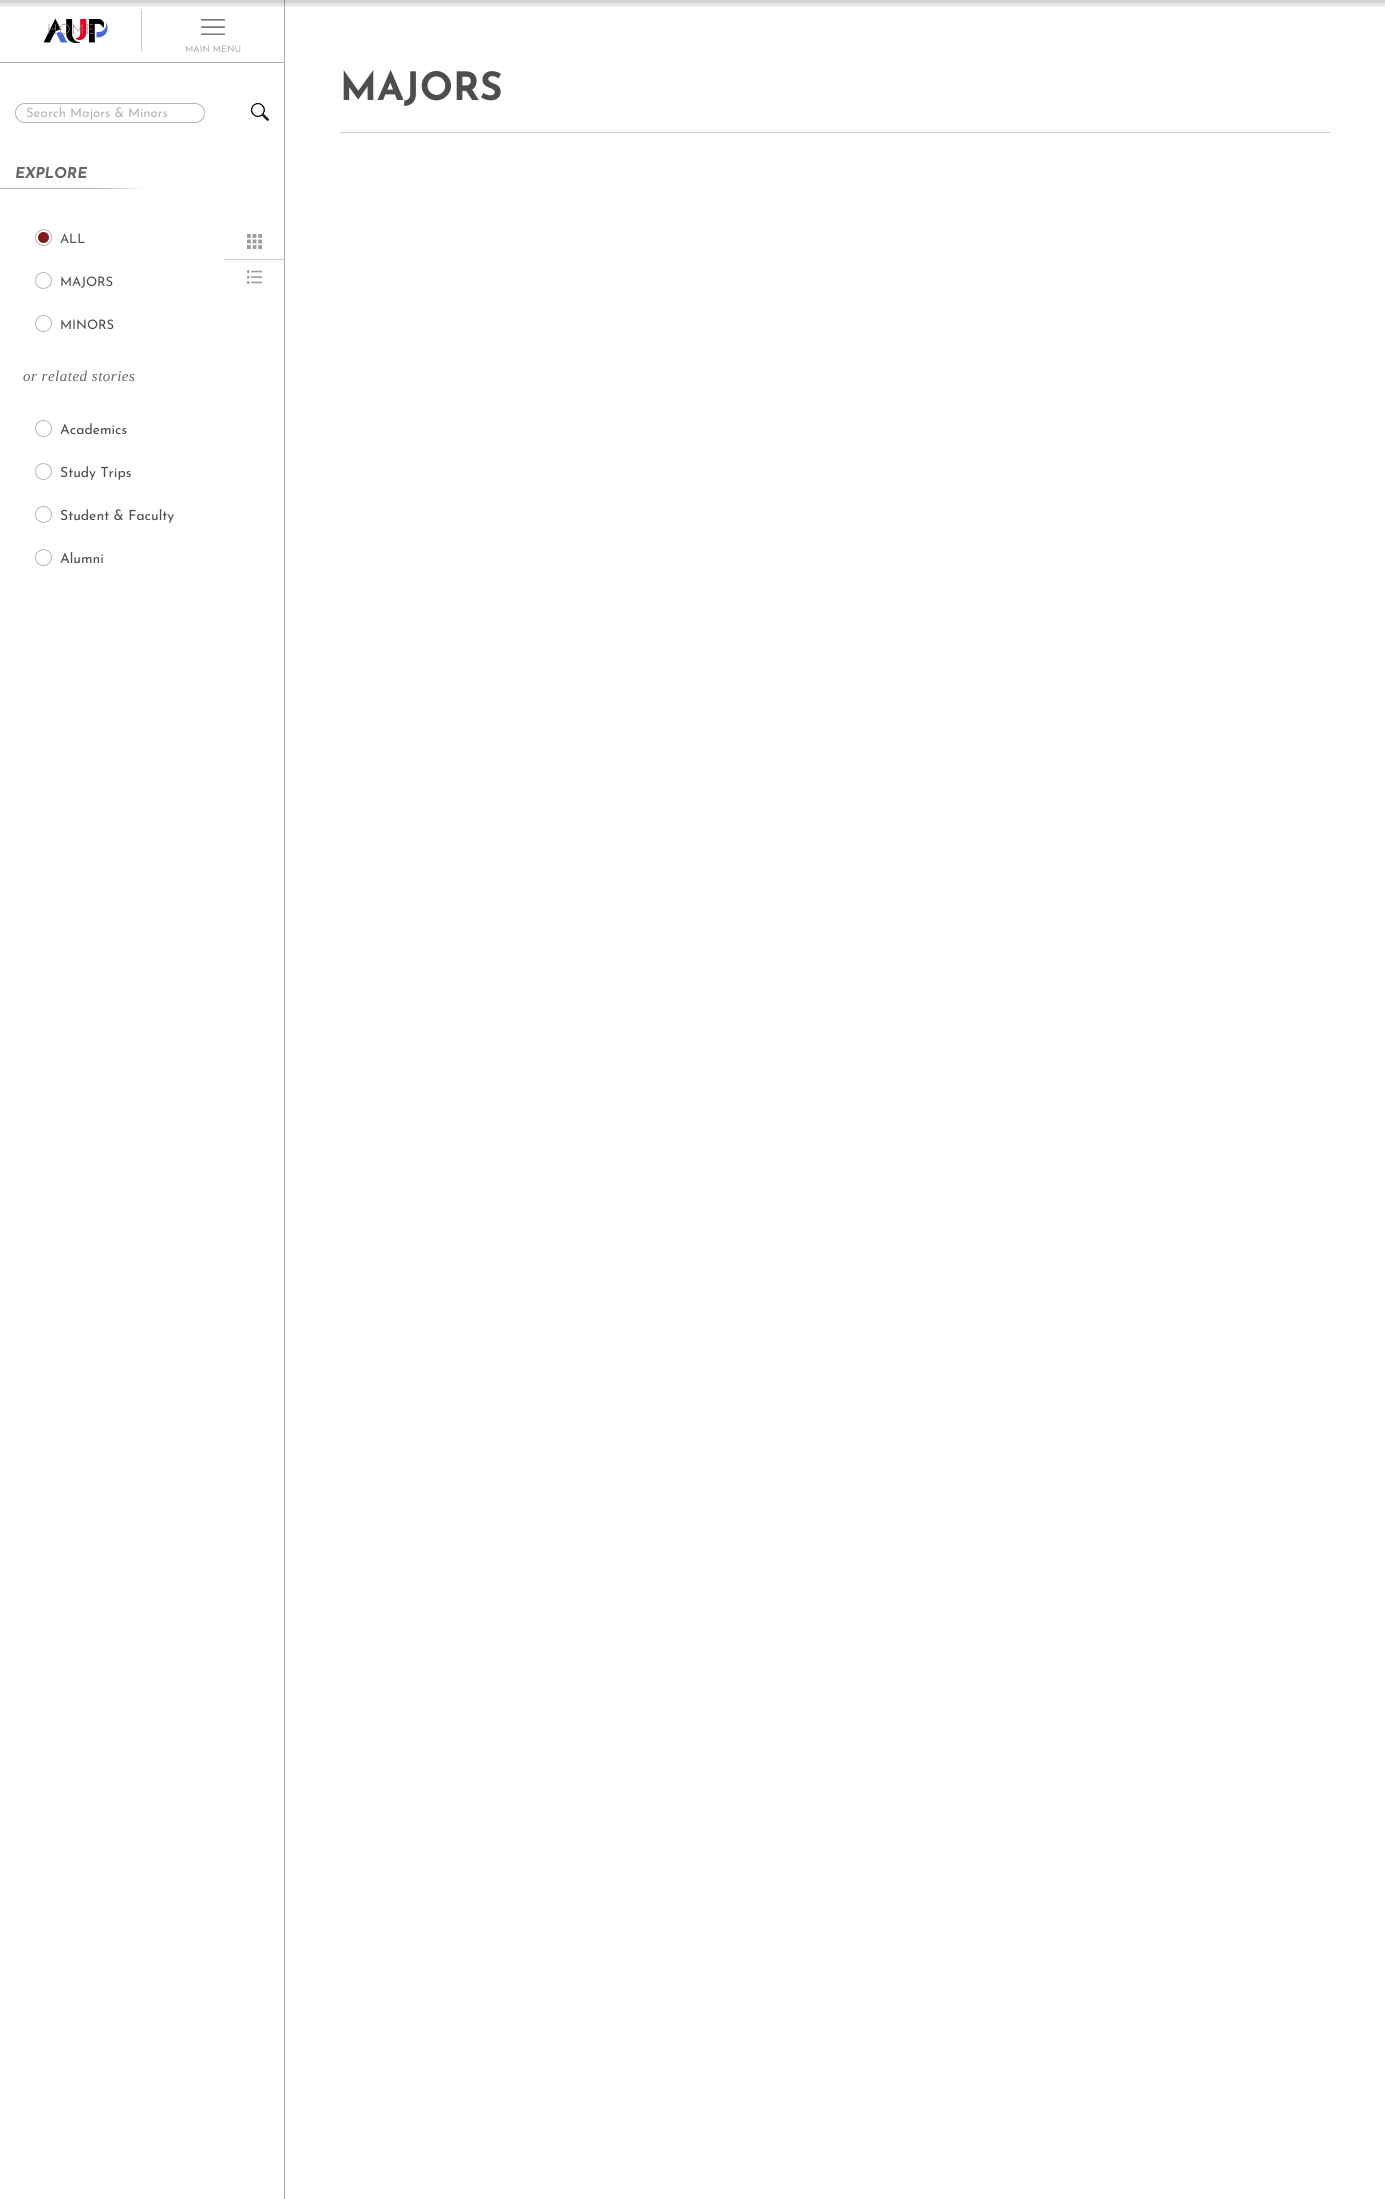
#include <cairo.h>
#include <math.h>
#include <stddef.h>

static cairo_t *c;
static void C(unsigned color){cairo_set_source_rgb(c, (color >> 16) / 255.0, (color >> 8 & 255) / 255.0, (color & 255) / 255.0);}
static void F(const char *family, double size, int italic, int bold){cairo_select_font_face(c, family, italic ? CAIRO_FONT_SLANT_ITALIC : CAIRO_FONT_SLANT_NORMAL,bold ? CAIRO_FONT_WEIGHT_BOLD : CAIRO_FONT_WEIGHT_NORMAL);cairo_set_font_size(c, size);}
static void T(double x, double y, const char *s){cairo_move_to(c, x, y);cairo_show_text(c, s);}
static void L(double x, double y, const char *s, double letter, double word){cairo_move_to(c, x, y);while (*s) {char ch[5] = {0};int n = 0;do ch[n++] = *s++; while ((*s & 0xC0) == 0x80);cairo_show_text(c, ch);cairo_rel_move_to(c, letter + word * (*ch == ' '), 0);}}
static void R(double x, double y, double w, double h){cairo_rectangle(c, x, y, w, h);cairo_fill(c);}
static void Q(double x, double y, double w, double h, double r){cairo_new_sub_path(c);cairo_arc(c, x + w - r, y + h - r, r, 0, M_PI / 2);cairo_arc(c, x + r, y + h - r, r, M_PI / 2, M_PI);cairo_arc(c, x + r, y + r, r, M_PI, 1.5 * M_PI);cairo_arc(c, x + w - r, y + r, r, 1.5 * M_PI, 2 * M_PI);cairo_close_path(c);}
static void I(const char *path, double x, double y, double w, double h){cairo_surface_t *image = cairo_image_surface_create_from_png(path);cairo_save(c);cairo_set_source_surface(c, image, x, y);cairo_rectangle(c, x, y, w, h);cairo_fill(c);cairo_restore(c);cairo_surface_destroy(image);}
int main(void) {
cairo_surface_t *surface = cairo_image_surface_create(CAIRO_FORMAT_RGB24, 1385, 2199);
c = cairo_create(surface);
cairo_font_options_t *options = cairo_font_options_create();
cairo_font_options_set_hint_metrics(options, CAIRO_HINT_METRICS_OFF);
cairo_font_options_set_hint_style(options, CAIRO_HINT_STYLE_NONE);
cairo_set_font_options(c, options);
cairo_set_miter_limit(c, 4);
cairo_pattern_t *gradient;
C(0xffffff);
cairo_paint(c);
C(0xadadad);
R(284,0,1,2199);
I("1.png",0,0,1385,7);
R(0,62,284,1);
I("2.png",43,19,65,24);
F("Josefin Sans Light",14,0,0);
C(0xa18288);
L(47,34,"HOME",1,0);
C(0xcccccc);
R(141,10,1,41);
I("3.png",201,19,24,16);
F("Josefin Sans",9,0,0);
C(0xadadad);
T(185,52,"MAIN MENU");
Q(15.5,103.5,189,19,9.5);
C(0xb4b4b4);
cairo_set_line_width(c,1);
cairo_stroke(c);
F("Josefin Sans",13,0,0);
T(26,117,"Search Majors & Minors");
I("4.png",251,103,18,18);
C(0xb3b3b3);
R(0,188,95,1);
F("Josefin Sans",15,1,1);
C(0x666666);
T(15,178,"EXPLORE");
gradient = cairo_pattern_create_linear(95,189,145,189);
cairo_pattern_add_color_stop_rgba(gradient,0,0.678,0.678,0.678,1);
cairo_pattern_add_color_stop_rgba(gradient,1,1,1,1,1);
cairo_set_source(c,gradient);
cairo_pattern_destroy(gradient);
R(95,188,50,1);
cairo_new_path(c);
cairo_arc(c,43.5,237.5,8,0,2 * M_PI);
C(0xb7b7b7);
cairo_stroke(c);
C(0x801c1b);
cairo_arc(c,43.5,237.5,5.5,0,2 * M_PI);
cairo_fill(c);
F("Josefin Sans",13,0,0);
C(0x4d4d4d);
T(60,243,"ALL");
cairo_new_path(c);
cairo_arc(c,43.5,280.5,8,0,2 * M_PI);
C(0xb7b7b7);
cairo_stroke(c);
C(0x4d4d4d);
T(60,286,"MAJORS");
cairo_new_path(c);
cairo_arc(c,43.5,323.5,8,0,2 * M_PI);
C(0xb7b7b7);
cairo_stroke(c);
C(0x4d4d4d);
T(60,329,"MINORS");
I("5.png",247,234,15,15);
C(0xcccccc);
R(224,259,60,1);
I("6.png",247,270,15,14);
F("Liberation Serif",15,1,0);
C(0x666666);
L(23,381,"or related stories",.5,0);
cairo_new_path(c);
cairo_arc(c,43.5,428.5,8,0,2 * M_PI);
C(0xb7b7b7);
cairo_stroke(c);
F("Josefin Sans",14,0,0);
C(0x4d4d4d);
T(60,434,"Academics");
cairo_new_path(c);
cairo_arc(c,43.5,471.5,8,0,2 * M_PI);
C(0xb7b7b7);
cairo_stroke(c);
C(0x4d4d4d);
T(60,477,"Study Trips");
cairo_new_path(c);
cairo_arc(c,43.5,514.5,8,0,2 * M_PI);
C(0xb7b7b7);
cairo_stroke(c);
C(0x4d4d4d);
T(60,520,"Student & Faculty");
cairo_new_path(c);
cairo_arc(c,43.5,557.5,8,0,2 * M_PI);
C(0xb7b7b7);
cairo_stroke(c);
C(0x4d4d4d);
T(60,563,"Alumni");
C(0xcccccc);
R(340,132,990,1);
F("Josefin Sans",39,0,1);
C(0x4d4d4d);
T(340,100,"MAJORS");
cairo_surface_write_to_png(surface, "o.png");
cairo_font_options_destroy(options);
cairo_destroy(c);
cairo_surface_destroy(surface);
return 0;
}
